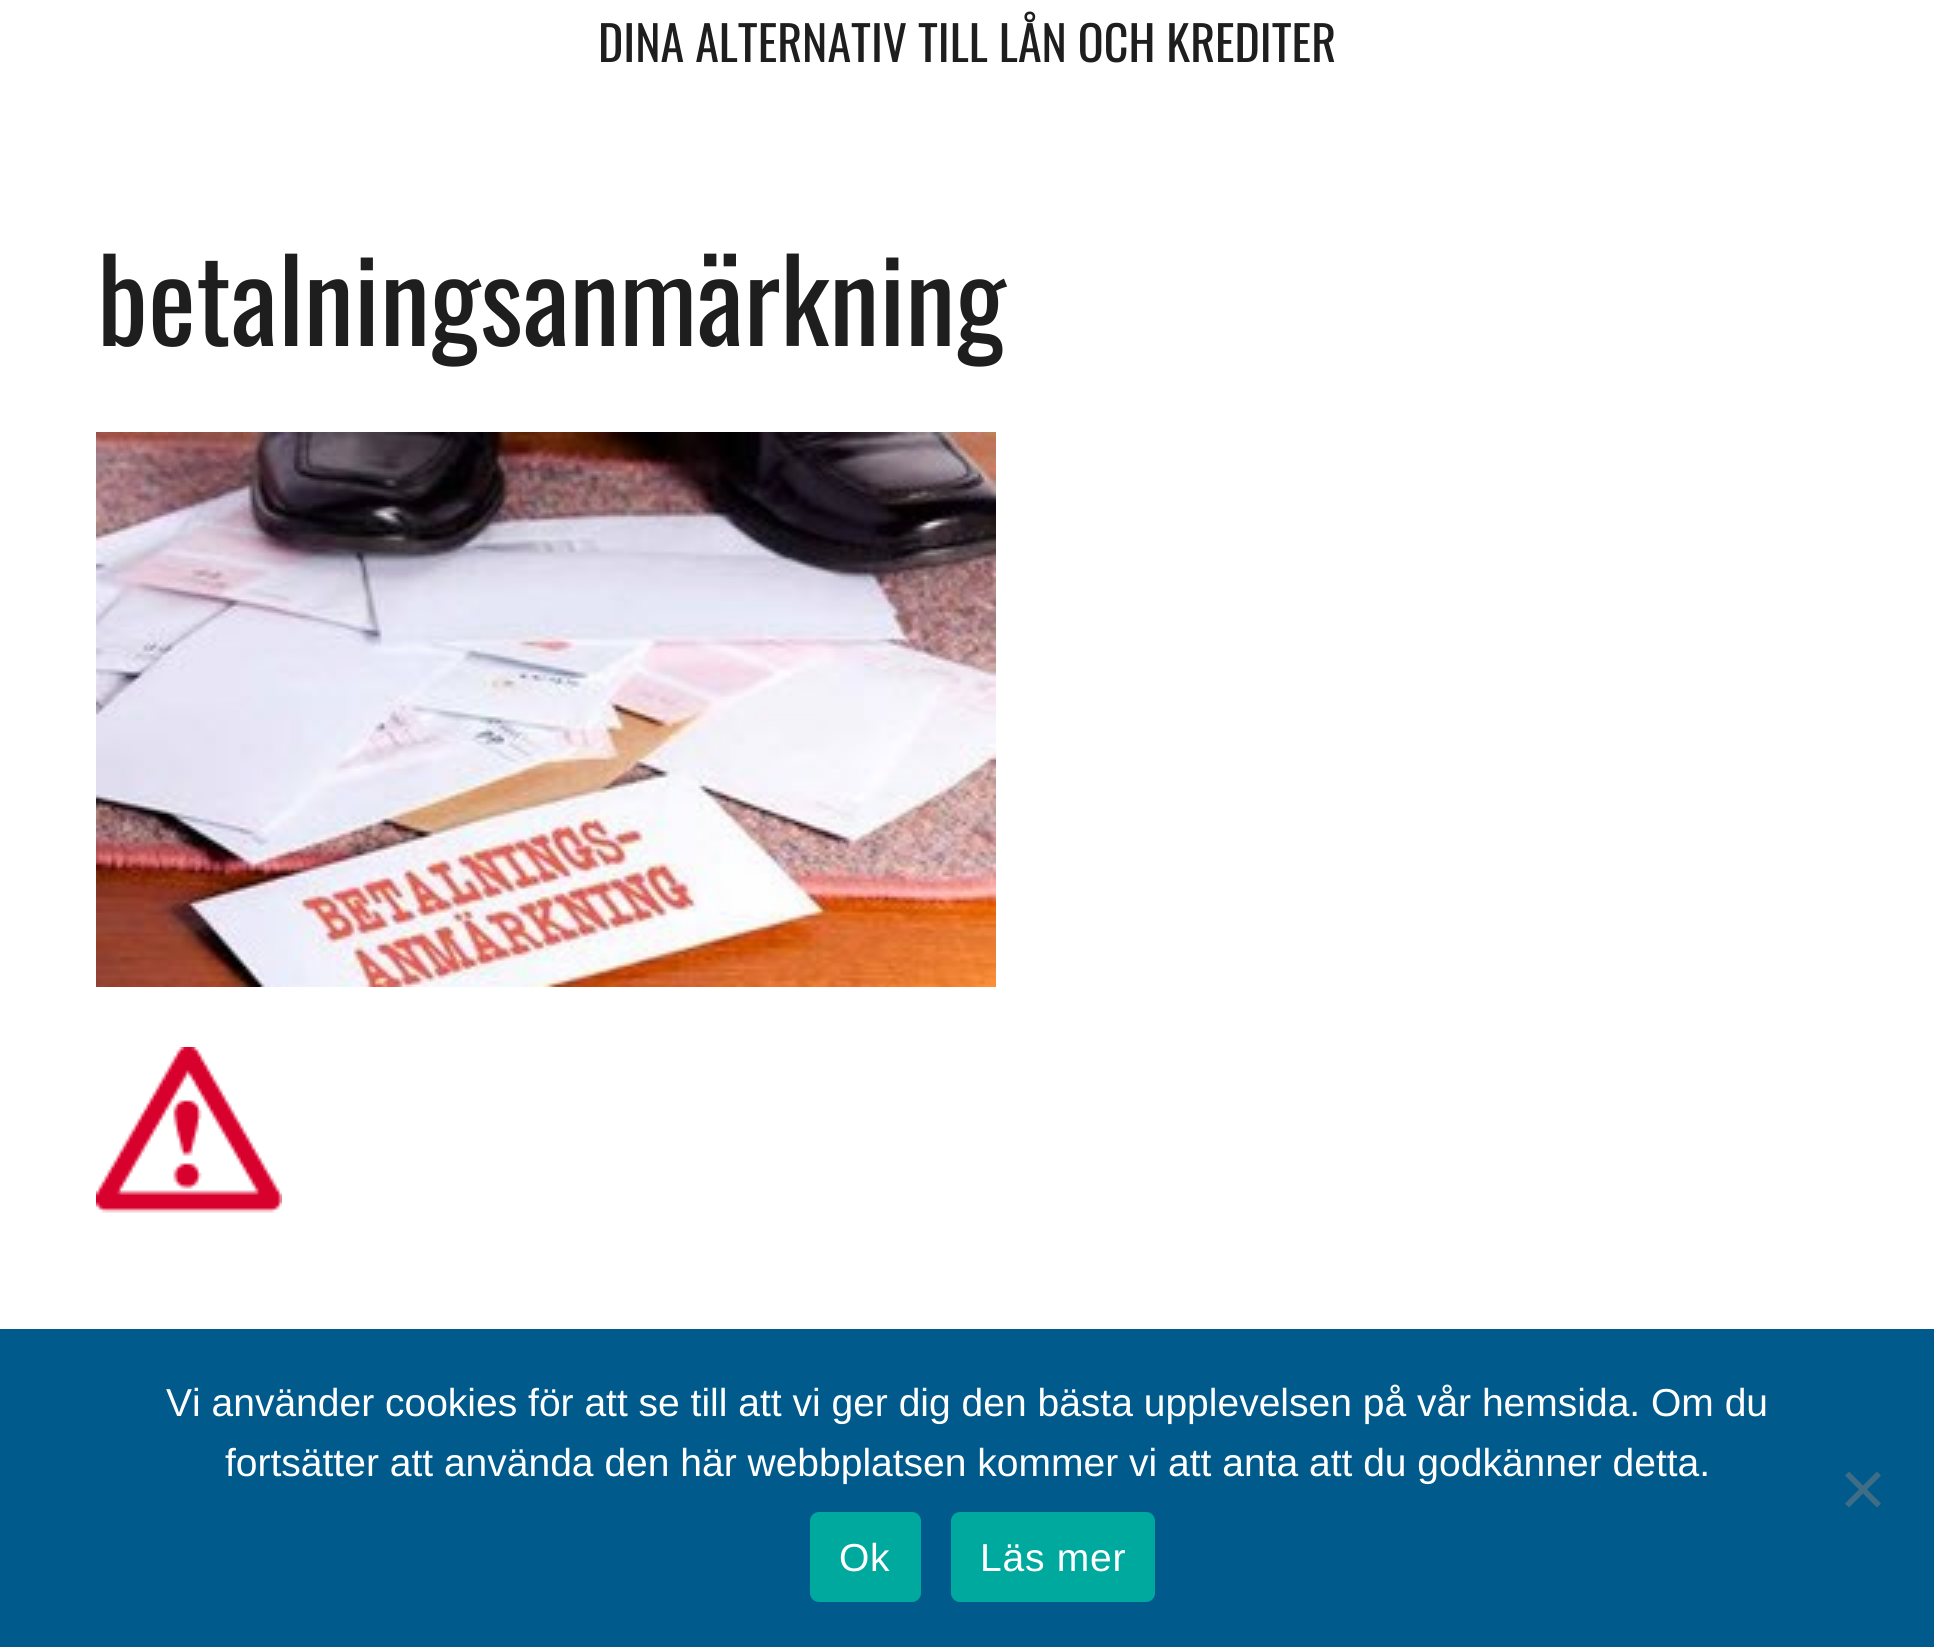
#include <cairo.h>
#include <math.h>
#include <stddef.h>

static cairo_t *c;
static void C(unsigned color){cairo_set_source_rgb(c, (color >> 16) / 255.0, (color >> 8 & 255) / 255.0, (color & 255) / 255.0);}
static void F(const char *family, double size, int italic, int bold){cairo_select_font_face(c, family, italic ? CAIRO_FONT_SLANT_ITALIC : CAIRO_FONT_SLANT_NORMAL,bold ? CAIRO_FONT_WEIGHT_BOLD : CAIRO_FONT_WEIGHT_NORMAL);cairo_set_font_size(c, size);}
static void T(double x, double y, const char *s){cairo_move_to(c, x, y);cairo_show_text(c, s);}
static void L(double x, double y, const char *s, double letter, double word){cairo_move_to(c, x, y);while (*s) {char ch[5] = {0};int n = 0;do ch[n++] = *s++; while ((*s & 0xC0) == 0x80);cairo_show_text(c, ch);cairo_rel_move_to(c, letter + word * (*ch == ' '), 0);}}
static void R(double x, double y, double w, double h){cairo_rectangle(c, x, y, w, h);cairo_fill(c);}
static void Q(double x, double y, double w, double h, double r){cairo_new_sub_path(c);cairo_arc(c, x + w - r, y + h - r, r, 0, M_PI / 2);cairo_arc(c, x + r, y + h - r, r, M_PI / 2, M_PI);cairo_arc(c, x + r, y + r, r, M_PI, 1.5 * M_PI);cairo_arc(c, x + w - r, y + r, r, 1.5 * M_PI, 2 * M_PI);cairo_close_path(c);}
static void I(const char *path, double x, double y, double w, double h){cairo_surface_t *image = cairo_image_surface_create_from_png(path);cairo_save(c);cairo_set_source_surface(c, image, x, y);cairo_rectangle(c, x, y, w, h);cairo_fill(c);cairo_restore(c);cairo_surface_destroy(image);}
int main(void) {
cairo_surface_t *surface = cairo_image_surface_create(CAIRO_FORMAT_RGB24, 1934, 1647);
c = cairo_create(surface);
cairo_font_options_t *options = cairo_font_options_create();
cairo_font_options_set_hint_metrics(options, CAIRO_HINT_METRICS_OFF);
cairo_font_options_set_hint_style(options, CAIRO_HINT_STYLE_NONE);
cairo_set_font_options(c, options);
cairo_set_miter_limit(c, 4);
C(0xffffff);
cairo_paint(c);
F("Oswald",48,0,0);
C(0x1f1e1e);
T(598,62,"DINA ALTERNATIV TILL LÅN OCH KREDITER");
F("Oswald",114,0,0);
T(97,346,"betalningsanmärkning");
I("1.png",96,432,900,555);
I("2.png",96,1047,186,166);
C(0x005a8c);
R(0,1329,1934,318);
F("Liberation Sans",39,0,0);
C(0xffffff);
T(166,1416,"Vi använder cookies för att se till att vi ger dig den bästa upplevelsen på vår hemsida. Om du");
T(225,1476,"fortsätter att använda den här webbplatsen kommer vi att anta att du godkänner detta.");
C(0x406d86);
cairo_new_path(c);
cairo_move_to(c,1877,1471.5);
cairo_line_to(c,1881,1475.5);
cairo_line_to(c,1849,1507.5);
cairo_line_to(c,1845,1503.5);
cairo_close_path(c);
cairo_fill(c);
cairo_new_path(c);
cairo_move_to(c,1845,1475.5);
cairo_line_to(c,1849,1471.5);
cairo_line_to(c,1881,1503.5);
cairo_line_to(c,1877,1507.5);
cairo_close_path(c);
cairo_fill(c);
C(0x00a99d);
Q(810,1512,111,90,9);
cairo_fill(c);
C(0xffffff);
L(839,1571,"Ok",.75,0);
C(0x00a99d);
Q(951,1512,204,90,9);
cairo_fill(c);
C(0xffffff);
L(980,1571,"Läs mer",.75,0);
cairo_surface_write_to_png(surface, "o.png");
cairo_font_options_destroy(options);
cairo_destroy(c);
cairo_surface_destroy(surface);
return 0;
}
